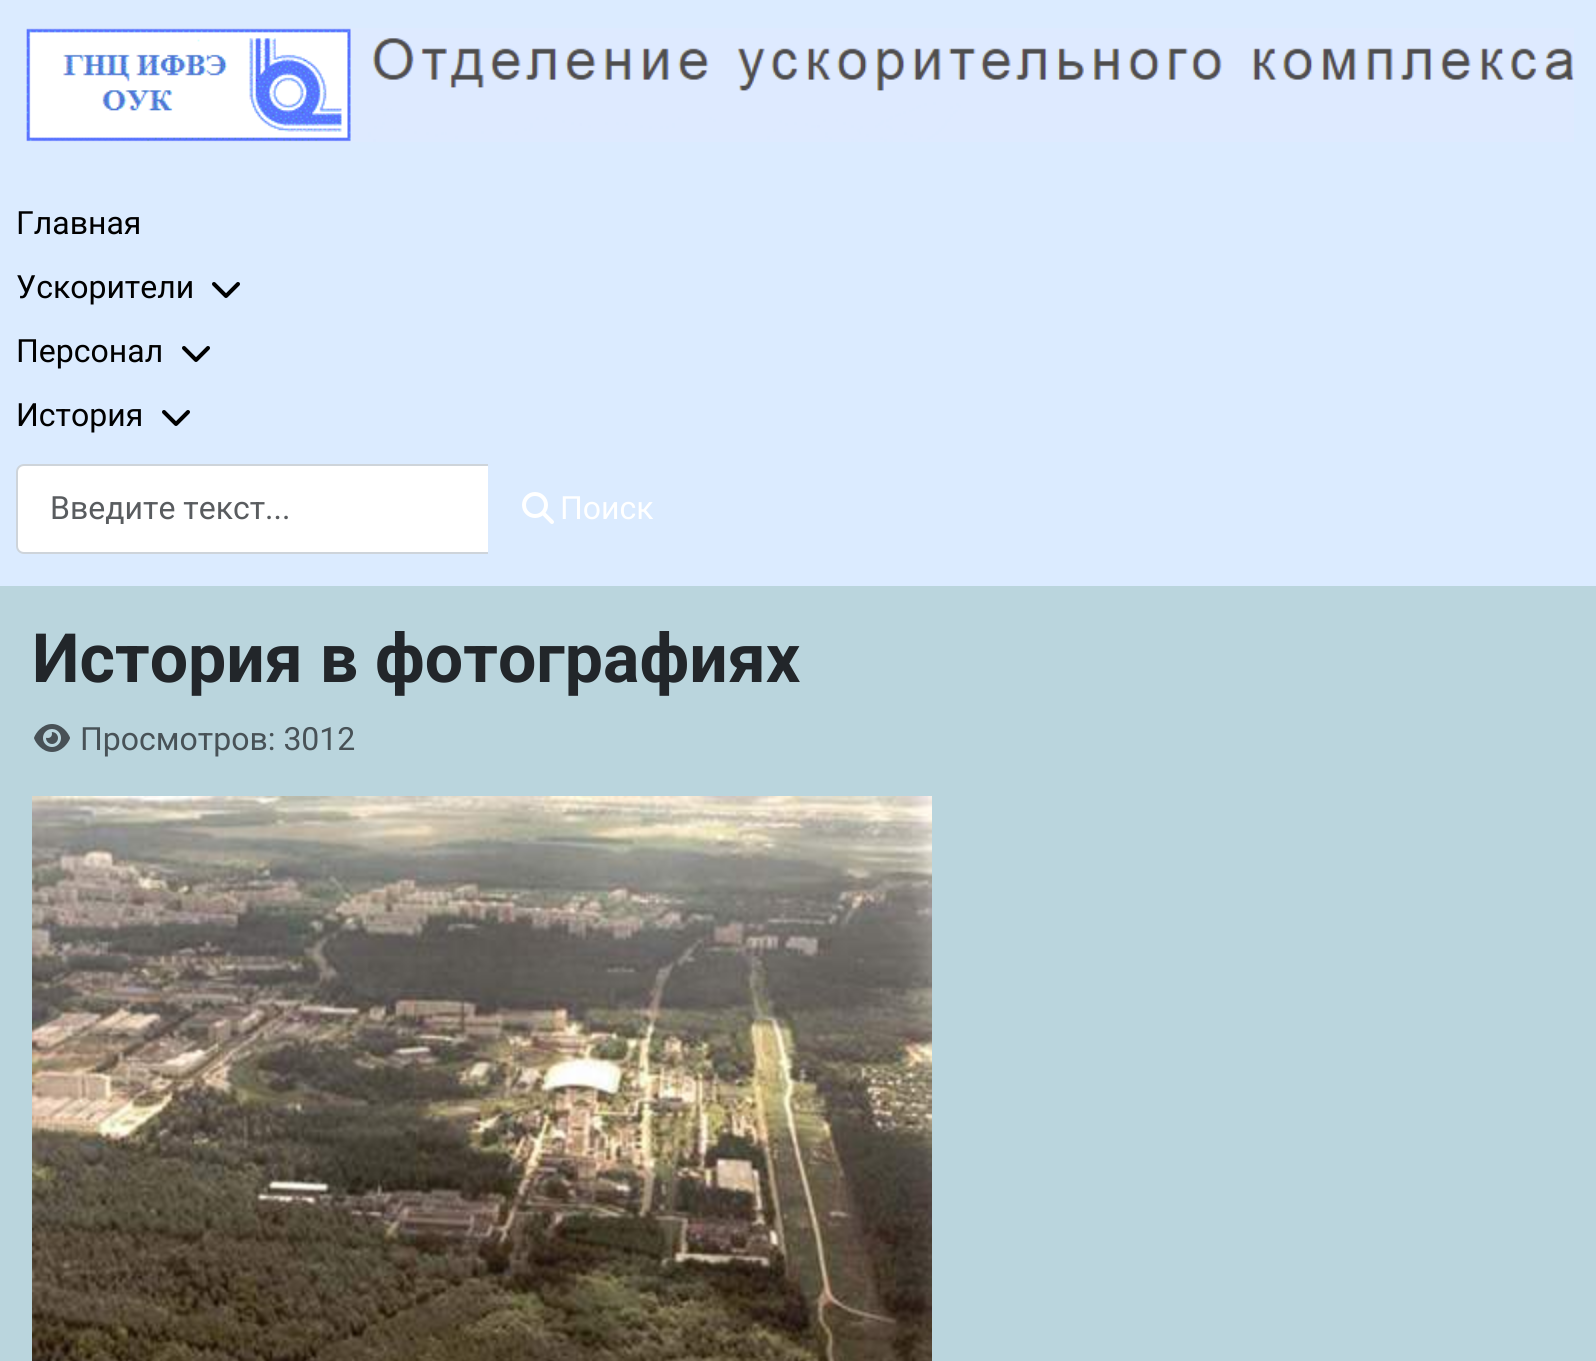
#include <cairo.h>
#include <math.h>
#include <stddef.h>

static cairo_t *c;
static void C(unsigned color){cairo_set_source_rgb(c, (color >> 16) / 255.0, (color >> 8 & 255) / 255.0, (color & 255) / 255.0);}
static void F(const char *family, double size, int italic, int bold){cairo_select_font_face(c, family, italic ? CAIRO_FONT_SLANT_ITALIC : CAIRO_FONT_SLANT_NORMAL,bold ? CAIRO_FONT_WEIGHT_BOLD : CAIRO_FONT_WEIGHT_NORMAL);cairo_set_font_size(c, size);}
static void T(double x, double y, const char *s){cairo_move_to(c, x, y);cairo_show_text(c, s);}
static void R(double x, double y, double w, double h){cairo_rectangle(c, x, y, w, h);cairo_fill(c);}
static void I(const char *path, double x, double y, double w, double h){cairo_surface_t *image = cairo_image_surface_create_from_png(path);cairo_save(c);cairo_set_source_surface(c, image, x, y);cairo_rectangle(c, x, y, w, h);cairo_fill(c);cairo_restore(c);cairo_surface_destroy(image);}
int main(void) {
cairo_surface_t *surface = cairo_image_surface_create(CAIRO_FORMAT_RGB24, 1596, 1361);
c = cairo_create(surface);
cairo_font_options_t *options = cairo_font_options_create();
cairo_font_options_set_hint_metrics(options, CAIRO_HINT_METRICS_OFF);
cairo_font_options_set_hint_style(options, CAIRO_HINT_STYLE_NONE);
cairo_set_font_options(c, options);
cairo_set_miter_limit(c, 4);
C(0xbad5dd);
cairo_paint(c);
C(0xdbebff);
R(0,0,1596,586);
I("1.png",26,28,1548,114);
F("Roboto",32,0,0);
C(0x000000);
T(16,234,"Главная");
T(16,298,"Ускорители");
I("2.png",212,282,28,16);
T(16,362,"Персонал");
I("2.png",182,346,28,16);
T(16,426,"История");
I("2.png",162,410,28,16);
C(0xffffff);
cairo_new_path(c);
cairo_move_to(c,24,465);
cairo_line_to(c,489,465);
cairo_line_to(c,489,553);
cairo_line_to(c,24,553);
cairo_curve_to(c,20,553,17,550,17,546);
cairo_line_to(c,17,472);
cairo_curve_to(c,17,468,20,465,24,465);
cairo_close_path(c);
cairo_fill_preserve(c);
C(0xced4da);
cairo_stroke(c);
C(0x595c5f);
T(50,519,"Введите текст...");
C(0xdbebff);
cairo_new_path(c);
cairo_move_to(c,488,464);
cairo_line_to(c,680,464);
cairo_curve_to(c,684.5,464,688,467.5,688,472);
cairo_line_to(c,688,546);
cairo_curve_to(c,688,550.5,684.5,554,680,554);
cairo_line_to(c,488,554);
cairo_close_path(c);
cairo_fill(c);
I("3.png",522,492,32,32);
C(0xffffff);
T(560,519,"Поиск");
F("Roboto",68,0,1);
C(0x22262a);
T(32,682,"История в фотографиях");
I("4.png",34,724,36,28);
F("Roboto",32,0,0);
C(0x485257);
T(80,750,"Просмотров: 3012");
I("5.png",32,796,900,565);
cairo_surface_write_to_png(surface, "o.png");
cairo_font_options_destroy(options);
cairo_destroy(c);
cairo_surface_destroy(surface);
return 0;
}
